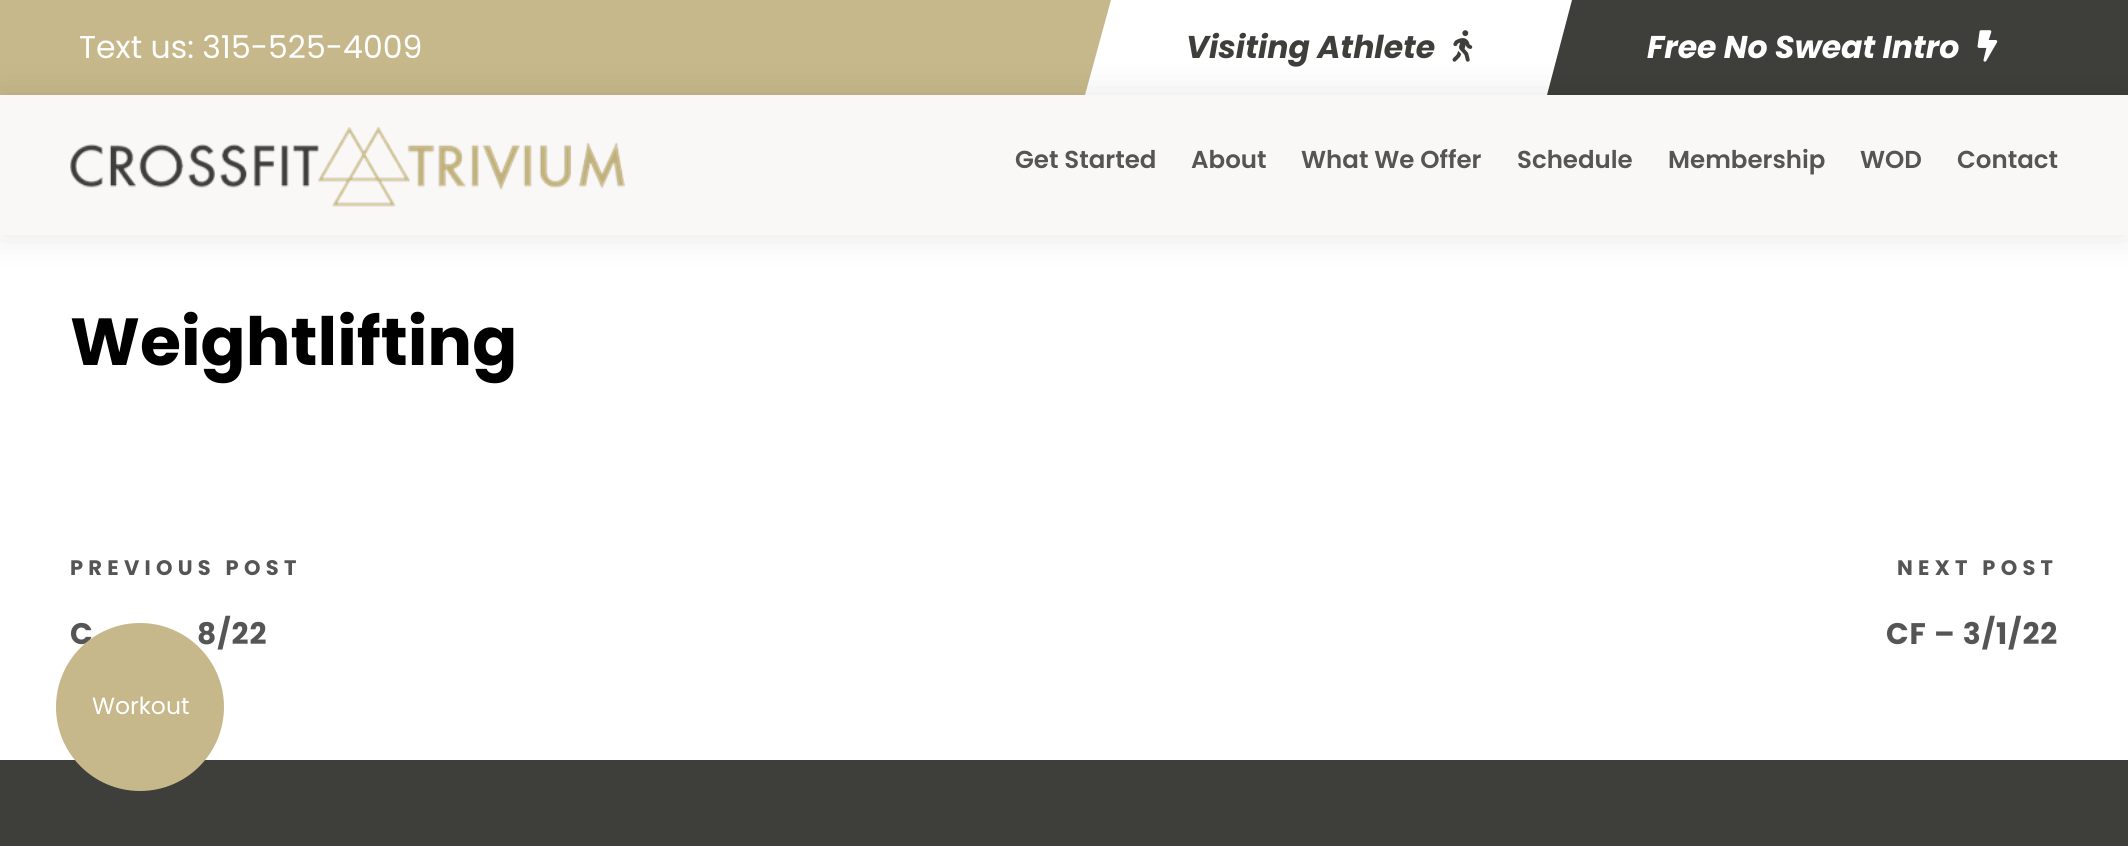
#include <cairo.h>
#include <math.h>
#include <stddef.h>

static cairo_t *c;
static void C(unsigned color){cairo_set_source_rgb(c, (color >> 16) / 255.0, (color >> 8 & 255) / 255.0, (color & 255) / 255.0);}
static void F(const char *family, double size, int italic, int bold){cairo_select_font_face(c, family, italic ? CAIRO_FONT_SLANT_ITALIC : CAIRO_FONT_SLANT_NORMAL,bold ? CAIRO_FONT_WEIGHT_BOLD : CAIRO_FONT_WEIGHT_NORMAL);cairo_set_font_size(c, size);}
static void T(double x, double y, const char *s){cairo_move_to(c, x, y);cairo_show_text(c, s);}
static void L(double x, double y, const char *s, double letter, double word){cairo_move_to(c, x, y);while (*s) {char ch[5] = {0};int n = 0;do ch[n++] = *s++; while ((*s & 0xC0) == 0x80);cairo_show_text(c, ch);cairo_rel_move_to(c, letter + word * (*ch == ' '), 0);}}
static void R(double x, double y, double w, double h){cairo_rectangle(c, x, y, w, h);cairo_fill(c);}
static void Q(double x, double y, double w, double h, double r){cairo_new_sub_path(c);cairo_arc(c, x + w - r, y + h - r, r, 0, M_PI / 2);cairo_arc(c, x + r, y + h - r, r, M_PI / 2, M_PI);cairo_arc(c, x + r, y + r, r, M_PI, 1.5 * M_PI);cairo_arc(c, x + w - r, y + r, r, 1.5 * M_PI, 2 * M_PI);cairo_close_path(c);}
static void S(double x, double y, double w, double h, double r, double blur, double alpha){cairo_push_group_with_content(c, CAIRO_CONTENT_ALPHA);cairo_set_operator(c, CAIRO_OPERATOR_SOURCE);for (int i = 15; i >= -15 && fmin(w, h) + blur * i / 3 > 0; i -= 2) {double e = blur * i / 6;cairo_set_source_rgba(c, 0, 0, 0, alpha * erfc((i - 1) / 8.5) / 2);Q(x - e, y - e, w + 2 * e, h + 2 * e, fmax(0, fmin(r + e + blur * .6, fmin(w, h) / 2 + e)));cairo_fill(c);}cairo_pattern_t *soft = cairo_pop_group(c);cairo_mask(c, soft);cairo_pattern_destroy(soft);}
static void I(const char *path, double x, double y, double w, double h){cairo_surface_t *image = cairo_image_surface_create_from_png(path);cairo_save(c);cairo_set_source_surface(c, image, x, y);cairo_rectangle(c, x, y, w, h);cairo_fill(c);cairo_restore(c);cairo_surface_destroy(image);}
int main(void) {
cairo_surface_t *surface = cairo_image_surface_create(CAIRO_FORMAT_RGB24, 2128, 846);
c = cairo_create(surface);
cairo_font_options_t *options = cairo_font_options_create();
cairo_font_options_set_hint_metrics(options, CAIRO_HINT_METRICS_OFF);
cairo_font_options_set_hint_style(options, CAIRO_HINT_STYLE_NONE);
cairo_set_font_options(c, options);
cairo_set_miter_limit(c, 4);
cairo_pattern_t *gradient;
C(0xffffff);
cairo_paint(c);
C(0xc6b88a);
R(0,0,1111,95);
F("Poppins",31.5,0,0);
C(0xffffff);
T(79,58,"Text us: 315-525-4009");
cairo_new_path(c);
cairo_move_to(c,1111,0);
cairo_line_to(c,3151,0);
cairo_line_to(c,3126,95);
cairo_line_to(c,1085,95);
cairo_close_path(c);
cairo_fill(c);
F("Poppins",31.5,1,1);
C(0x3e3e3b);
T(1186,58,"Visiting Athlete");
I("1.png",1452,30,21,32);
gradient = cairo_pattern_create_linear(-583,47,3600,47);
cairo_pattern_add_color_stop_rgba(gradient,0,0.776,0.722,0.541,1);
cairo_pattern_add_color_stop_rgba(gradient,.5,0.333,0.333,0.333,1);
cairo_pattern_add_color_stop_rgba(gradient,.5,0.243,0.243,0.231,1);
cairo_pattern_add_color_stop_rgba(gradient,1,0.243,0.243,0.231,1);
cairo_set_source(c,gradient);
cairo_pattern_destroy(gradient);
cairo_new_path(c);
cairo_move_to(c,1572,0);
cairo_line_to(c,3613,0);
cairo_line_to(c,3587,95);
cairo_line_to(c,1547,95);
cairo_close_path(c);
cairo_fill(c);
C(0xffffff);
T(1647,58,"Free No Sweat Intro");
I("2.png",1977,30,21,32);
F("Poppins",66.5,0,1);
C(0x000000);
T(70,365,"Weightlifting");
F("Poppins",21,0,1);
C(0x555555);
L(70,575,"PREVIOUS POST",5.25,0);
F("Poppins",29.75,0,1);
L(70,644,"C",.9,0);
L(197,644,"8/22",.9,0);
F("Poppins",21,0,1);
L(1897,575,"NEXT POST",5.25,0);
F("Poppins",29.75,0,1);
L(1886,644,"CF – 3/1/22",.9,0);
C(0x3e3e3b);
R(0,760,2128,86);
C(0x000000);
S(0,95,2128,140,0,17.5,.1);
C(0xfaf8f7);
R(0,95,2128,140);
I("3.png",70,127,555,80);
F("Poppins SemiBold",24.5,0,0);
C(0x555555);
T(1015,168,"Get Started");
T(1191,168,"About");
T(1301,168,"What We Offer");
T(1517,168,"Schedule");
T(1668,168,"Membership");
T(1860,168,"WOD");
T(1957,168,"Contact");
C(0xc6b88a);
cairo_new_path(c);
cairo_arc(c,140,707,84,0,2 * M_PI);
cairo_fill(c);
F("Poppins",23.5,0,0);
C(0xffffff);
T(92,714,"Workout");
cairo_surface_write_to_png(surface, "o.png");
cairo_font_options_destroy(options);
cairo_destroy(c);
cairo_surface_destroy(surface);
return 0;
}
